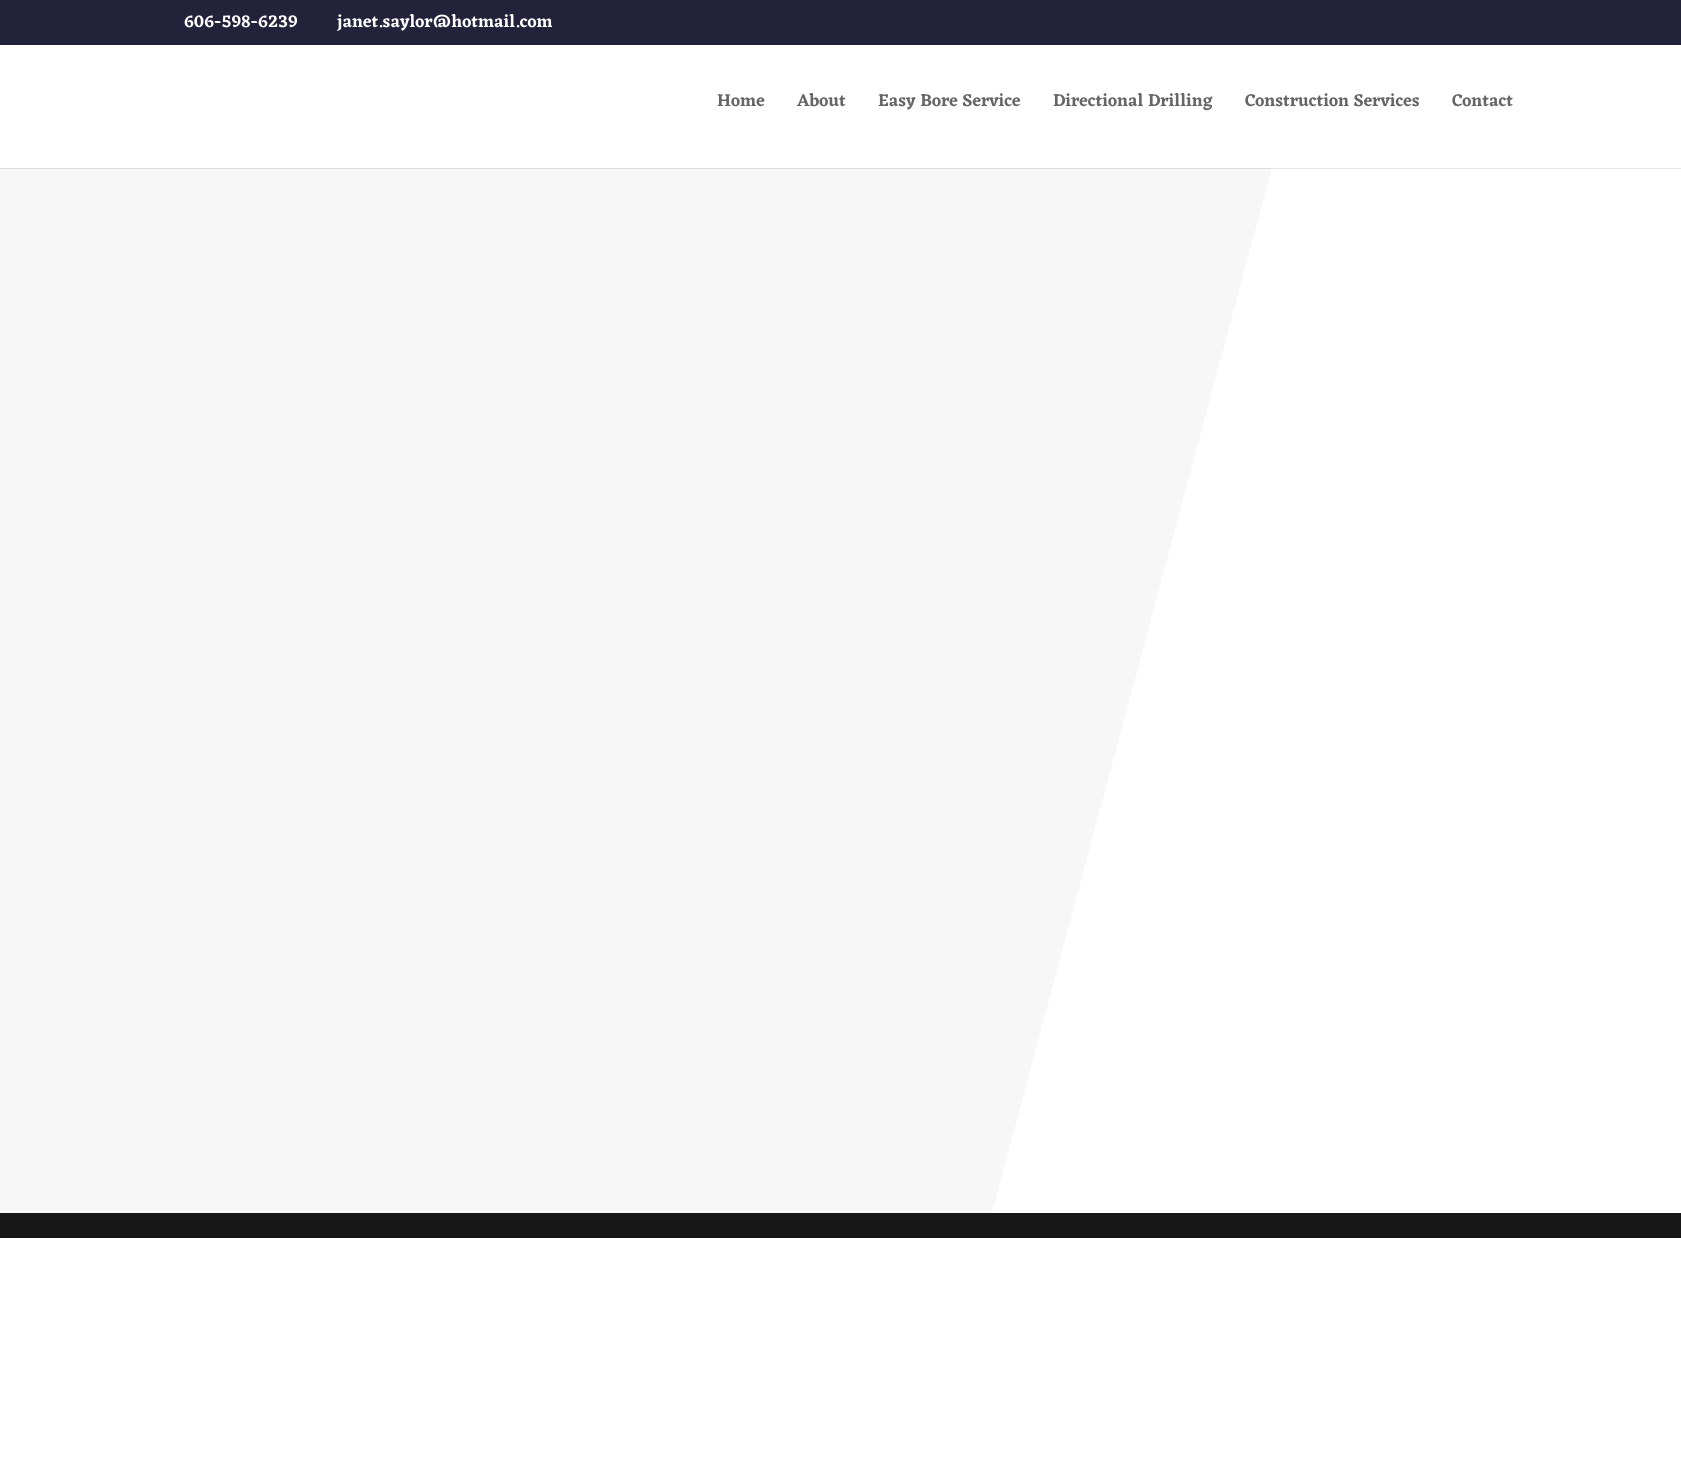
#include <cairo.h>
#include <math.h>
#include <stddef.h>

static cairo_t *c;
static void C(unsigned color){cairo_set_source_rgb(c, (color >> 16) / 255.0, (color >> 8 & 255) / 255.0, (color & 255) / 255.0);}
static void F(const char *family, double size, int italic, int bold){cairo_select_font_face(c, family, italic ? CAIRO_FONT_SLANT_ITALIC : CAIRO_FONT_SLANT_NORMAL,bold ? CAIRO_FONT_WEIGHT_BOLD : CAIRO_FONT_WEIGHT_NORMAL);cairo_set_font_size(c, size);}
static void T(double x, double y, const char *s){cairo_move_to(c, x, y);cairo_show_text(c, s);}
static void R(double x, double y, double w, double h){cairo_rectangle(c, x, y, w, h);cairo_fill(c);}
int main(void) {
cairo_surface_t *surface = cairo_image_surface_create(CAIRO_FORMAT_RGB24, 1681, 1470);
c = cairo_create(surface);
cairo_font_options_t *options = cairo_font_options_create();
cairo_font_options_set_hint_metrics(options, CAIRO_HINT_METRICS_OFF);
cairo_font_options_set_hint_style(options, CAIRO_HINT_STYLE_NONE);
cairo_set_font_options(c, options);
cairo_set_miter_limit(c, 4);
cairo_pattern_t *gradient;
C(0xffffff);
cairo_paint(c);
C(0x22223b);
R(0,0,1681,45);
F("Eczar SemiBold",17.5,0,0);
C(0xffffff);
T(184,27,"606-598-6239");
T(337,27,"janet.saylor@hotmail.com");
C(0x666666);
T(717,106,"Home");
T(797,106,"About");
T(878,106,"Easy Bore Service");
T(1053,106,"Directional Drilling");
T(1245,106,"Construction Services");
T(1452,106,"Contact");
gradient = cairo_pattern_create_linear(-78,430,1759,922);
cairo_pattern_add_color_stop_rgba(gradient,.65,0.969,0.969,0.969,1);
cairo_pattern_add_color_stop_rgba(gradient,.65,1,1,1,1);
cairo_set_source(c,gradient);
cairo_pattern_destroy(gradient);
R(0,169,1271,1044);
gradient = cairo_pattern_create_linear(-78,430,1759,922);
cairo_pattern_add_color_stop_rgba(gradient,.65,0.871,0.871,0.871,1);
cairo_pattern_add_color_stop_rgba(gradient,.65,0.902,0.902,0.902,1);
cairo_set_source(c,gradient);
cairo_pattern_destroy(gradient);
R(0,168,1681,1);
C(0x171717);
R(0,1213,1681,25);
cairo_surface_write_to_png(surface, "o.png");
cairo_font_options_destroy(options);
cairo_destroy(c);
cairo_surface_destroy(surface);
return 0;
}
